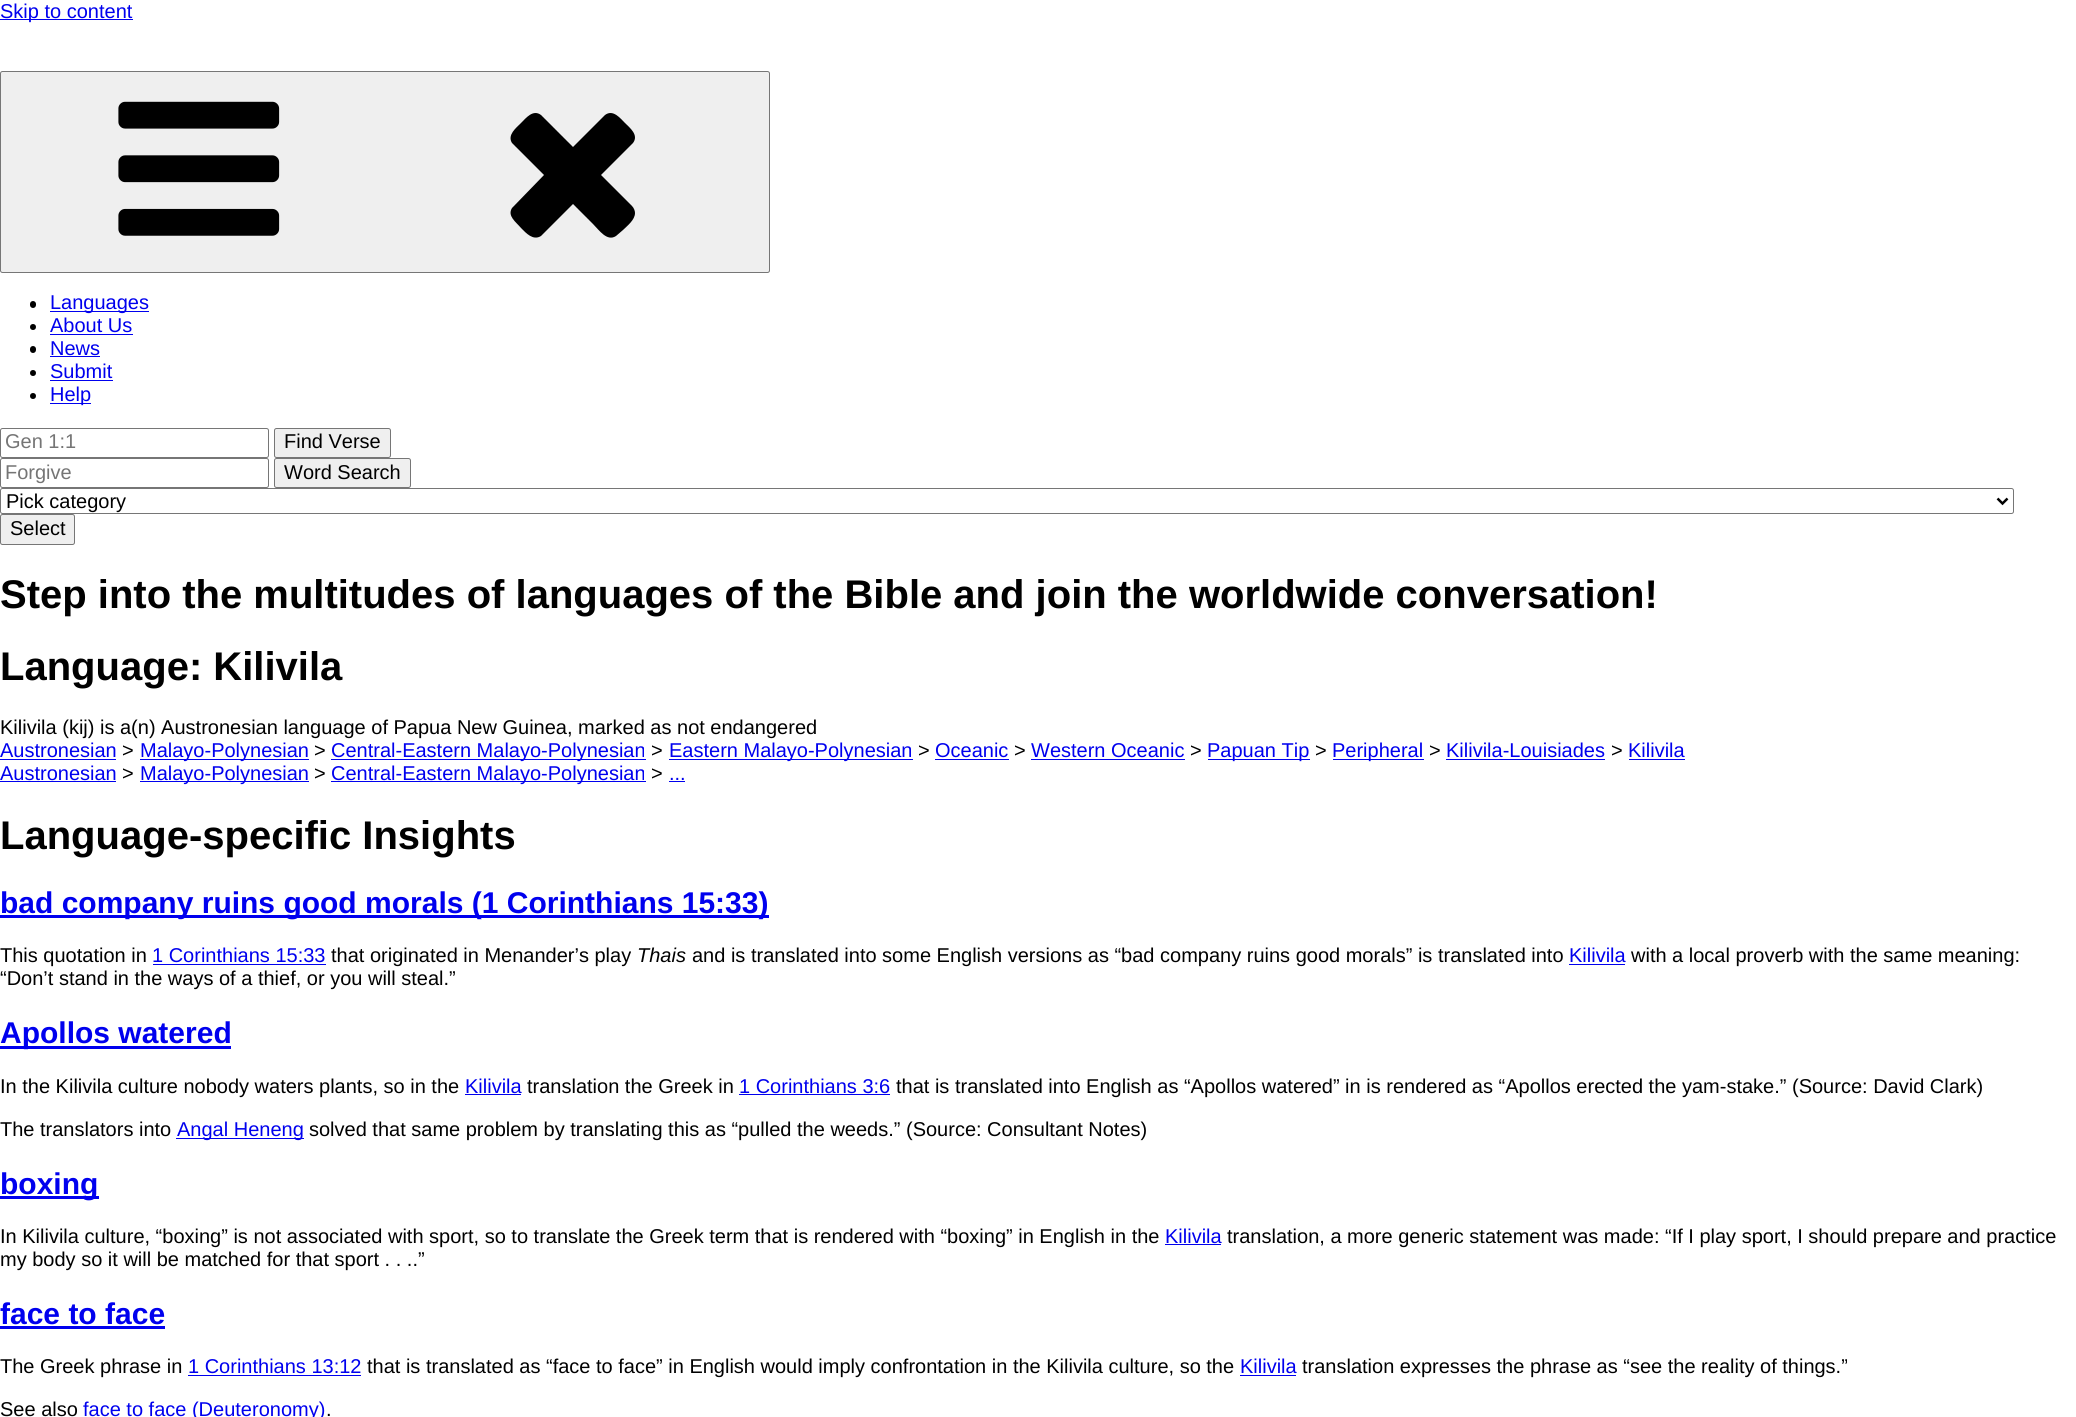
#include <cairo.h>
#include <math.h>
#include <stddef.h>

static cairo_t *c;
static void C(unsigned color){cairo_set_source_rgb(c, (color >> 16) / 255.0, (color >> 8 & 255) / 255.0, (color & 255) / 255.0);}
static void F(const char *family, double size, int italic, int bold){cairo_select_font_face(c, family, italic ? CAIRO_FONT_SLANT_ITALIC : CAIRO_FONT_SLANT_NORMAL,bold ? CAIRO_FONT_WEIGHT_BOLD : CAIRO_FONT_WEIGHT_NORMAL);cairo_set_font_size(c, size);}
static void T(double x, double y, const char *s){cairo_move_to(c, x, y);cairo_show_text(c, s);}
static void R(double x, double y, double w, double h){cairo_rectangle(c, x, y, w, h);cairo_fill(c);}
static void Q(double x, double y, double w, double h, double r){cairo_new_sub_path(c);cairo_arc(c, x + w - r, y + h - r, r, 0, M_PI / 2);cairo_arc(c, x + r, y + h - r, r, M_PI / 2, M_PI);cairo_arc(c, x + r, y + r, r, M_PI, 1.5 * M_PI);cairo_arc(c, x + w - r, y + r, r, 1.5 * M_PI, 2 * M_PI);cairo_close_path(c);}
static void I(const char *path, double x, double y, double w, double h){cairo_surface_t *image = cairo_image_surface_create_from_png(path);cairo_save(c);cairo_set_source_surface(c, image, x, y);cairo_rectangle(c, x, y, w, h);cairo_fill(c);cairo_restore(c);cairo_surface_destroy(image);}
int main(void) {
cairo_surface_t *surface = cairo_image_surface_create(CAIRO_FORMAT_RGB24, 2076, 1417);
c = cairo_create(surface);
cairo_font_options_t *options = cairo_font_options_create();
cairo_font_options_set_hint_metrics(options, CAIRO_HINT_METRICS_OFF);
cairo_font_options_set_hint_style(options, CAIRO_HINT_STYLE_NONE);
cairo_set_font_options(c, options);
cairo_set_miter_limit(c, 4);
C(0xffffff);
cairo_paint(c);
C(0x0000ee);
R(0,19,133,1);
F("Liberation Sans",20,0,0);
T(0,18,"Skip to content");
C(0xefefef);
Q(.5,71.5,769,201,2);
cairo_fill_preserve(c);
C(0x767676);
cairo_set_line_width(c,1);
cairo_stroke(c);
I("1.png",118,101,162,135);
C(0x000000);
cairo_new_path(c);
cairo_move_to(c,635,213);
cairo_curve_to(c,635,220,627,226,623,230);
cairo_line_to(c,616,236);
cairo_curve_to(c,607,242,599,230,593,224);
cairo_line_to(c,573,204);
cairo_line_to(c,541,236);
cairo_curve_to(c,533,241,526,233,521,228);
cairo_curve_to(c,516,222,507,216,512,208);
cairo_line_to(c,544,175);
cairo_line_to(c,512,143);
cairo_curve_to(c,507,135,516,128,521,123);
cairo_curve_to(c,526,118,533,109,541,115);
cairo_line_to(c,573,147);
cairo_line_to(c,605,115);
cairo_curve_to(c,613,109,620,118,625,123);
cairo_curve_to(c,630,128,639,135,633,143);
cairo_line_to(c,601,175);
cairo_line_to(c,632,206);
cairo_curve_to(c,634,208,635,211,635,213);
cairo_close_path(c);
cairo_fill(c);
Q(30,301,6,7,3);
cairo_fill(c);
C(0x0000ee);
R(50,311,99,1);
T(50,309,"Languages");
C(0x000000);
cairo_new_path(c);
cairo_arc(c,33,327,3,0,2 * M_PI);
cairo_fill(c);
C(0x0000ee);
T(50,332,"About Us");
R(50,334,83,1);
C(0x000000);
Q(30,346,6,7,3);
cairo_fill(c);
C(0x0000ee);
T(50,355,"News");
R(50,356,50,1);
C(0x000000);
cairo_new_path(c);
cairo_arc(c,33,373,3,0,2 * M_PI);
cairo_fill(c);
C(0x0000ee);
T(50,378,"Submit");
R(50,380,63,1);
C(0x000000);
cairo_new_path(c);
cairo_arc(c,33,396,3,0,2 * M_PI);
cairo_fill(c);
C(0x0000ee);
R(50,403,41,1);
T(50,401,"Help");
Q(.5,428.5,268,29,2);
C(0x767676);
cairo_stroke(c);
C(0x757575);
T(5,448,"Gen 1:1");
C(0xefefef);
Q(274.5,428.5,116,29,2);
cairo_fill_preserve(c);
C(0x767676);
cairo_stroke(c);
C(0x000000);
T(284,448,"Find Verse");
Q(.5,458.5,268,29,2);
C(0x767676);
cairo_stroke(c);
C(0x757575);
T(5,479,"Forgive");
C(0xefefef);
Q(274.5,458.5,136,29,2);
cairo_fill_preserve(c);
C(0x767676);
cairo_stroke(c);
C(0x000000);
T(284,479,"Word Search");
Q(.5,488.5,2013,25,2);
C(0x767676);
cairo_stroke(c);
cairo_new_path(c);
cairo_move_to(c,1997.5,498.5);
cairo_line_to(c,2002.5,503.5);
cairo_line_to(c,2007.5,498.5);
C(0x000000);
cairo_set_line_width(c,2.5);
cairo_stroke(c);
T(6,508,"Pick category");
C(0xefefef);
Q(.5,514.5,74,30,2);
cairo_fill_preserve(c);
C(0x767676);
cairo_set_line_width(c,1);
cairo_stroke(c);
C(0x000000);
T(10,535,"Select");
F("Liberation Sans",40,0,1);
T(0,608,"Step into the multitudes of languages of the Bible and join the worldwide conversation!");
T(0,680,"Language: Kilivila");
F("Liberation Sans",20,0,0);
T(0,734,"Kilivila (kij) is a(n) Austronesian language of Papua New Guinea, marked as not endangered");
C(0x0000ee);
T(0,757,"Austronesian");
R(0,759,116,1);
C(0x000000);
T(122,757,">");
C(0x0000ee);
R(140,759,169,1);
T(140,757,"Malayo-Polynesian");
C(0x000000);
T(314,757,">");
C(0x0000ee);
R(331,759,315,1);
T(331,757,"Central-Eastern Malayo-Polynesian");
C(0x000000);
T(651,757,">");
C(0x0000ee);
R(669,759,244,1);
T(669,757,"Eastern Malayo-Polynesian");
C(0x000000);
T(918,757,">");
C(0x0000ee);
T(935,757,"Oceanic");
R(935,759,74,1);
C(0x000000);
T(1014,757,">");
C(0x0000ee);
T(1031,757,"Western Oceanic");
R(1031,759,154,1);
C(0x000000);
T(1190,757,">");
C(0x0000ee);
R(1208,759,102,1);
T(1207,757,"Papuan Tip");
C(0x000000);
T(1315,757,">");
C(0x0000ee);
R(1333,759,91,1);
T(1332,757,"Peripheral");
C(0x000000);
T(1429,757,">");
C(0x0000ee);
T(1446,757,"Kilivila-Louisiades");
R(1446,759,159,1);
C(0x000000);
T(1611,757,">");
C(0x0000ee);
T(1628,757,"Kilivila");
R(1629,759,56,1);
T(0,780,"Austronesian");
R(0,781,116,1);
C(0x000000);
T(122,780,">");
C(0x0000ee);
R(140,781,169,1);
T(140,780,"Malayo-Polynesian");
C(0x000000);
T(314,780,">");
C(0x0000ee);
R(331,781,315,1);
T(331,780,"Central-Eastern Malayo-Polynesian");
C(0x000000);
T(651,780,">");
C(0x0000ee);
T(669,780,"...");
R(669,781,16,1);
F("Liberation Sans",40,0,1);
C(0x000000);
T(0,849,"Language-specific Insights");
C(0x0000ee);
R(0,915,769,3);
F("Liberation Sans",30,0,1);
T(0,913,"bad company ruins good morals (1 Corinthians 15:33)");
F("Liberation Sans",20,0,0);
C(0x000000);
T(0,962,"This quotation in");
C(0x0000ee);
T(152,962,"1 Corinthians 15:33");
R(153,964,173,1);
C(0x000000);
T(331,962,"that originated in Menander’s play");
F("Liberation Sans",20,1,0);
T(637,962,"Thais");
F("Liberation Sans",20,0,0);
T(692,962,"and is translated into some English versions as “bad company ruins good morals” is translated into");
C(0x0000ee);
T(1569,962,"Kilivila");
R(1569,964,56,1);
C(0x000000);
T(1631,962,"with a local proverb with the same meaning:");
T(0,985,"“Don’t stand in the ways of a thief, or you will steal.”");
C(0x0000ee);
R(0,1046,231,3);
F("Liberation Sans",30,0,1);
T(0,1043,"Apollos watered");
F("Liberation Sans",20,0,0);
C(0x000000);
T(0,1093,"In the Kilivila culture nobody waters plants, so in the");
C(0x0000ee);
T(465,1093,"Kilivila");
R(465,1094,56,1);
C(0x000000);
T(527,1093,"translation the Greek in");
C(0x0000ee);
T(739,1093,"1 Corinthians 3:6");
R(739,1094,151,1);
C(0x000000);
T(896,1093,"that is translated into English as “Apollos watered” in is rendered as “Apollos erected the yam-stake.” (Source: David Clark)");
T(0,1136,"The translators into");
C(0x0000ee);
R(176,1138,128,1);
T(177,1136,"Angal Heneng");
C(0x000000);
T(309,1136,"solved that same problem by translating this as “pulled the weeds.” (Source: Consultant Notes)");
C(0x0000ee);
R(0,1196,99,3);
F("Liberation Sans",30,0,1);
T(0,1194,"boxing");
F("Liberation Sans",20,0,0);
C(0x000000);
T(0,1243,"In Kilivila culture, “boxing” is not associated with sport, so to translate the Greek term that is rendered with “boxing” in English in the");
C(0x0000ee);
T(1165,1243,"Kilivila");
R(1165,1244,56,1);
C(0x000000);
T(1227,1243,"translation, a more generic statement was made: “If I play sport, I should prepare and practice");
T(0,1266,"my body so it will be matched for that sport . . ..”");
F("Liberation Sans",30,0,1);
C(0x0000ee);
T(0,1324,"face to face");
R(0,1326,165,3);
F("Liberation Sans",20,0,0);
C(0x000000);
T(0,1373,"The Greek phrase in");
C(0x0000ee);
T(188,1373,"1 Corinthians 13:12");
R(188,1375,173,1);
C(0x000000);
T(367,1373,"that is translated as “face to face” in English would imply confrontation in the Kilivila culture, so the");
C(0x0000ee);
T(1240,1373,"Kilivila");
R(1240,1375,56,1);
C(0x000000);
T(1302,1373,"translation expresses the phrase as “see the reality of things.”");
T(0,1416,"See also");
C(0x0000ee);
T(83,1416,"face to face (Deuteronomy)");
C(0x000000);
T(326,1416,".");
cairo_surface_write_to_png(surface, "o.png");
cairo_font_options_destroy(options);
cairo_destroy(c);
cairo_surface_destroy(surface);
return 0;
}
